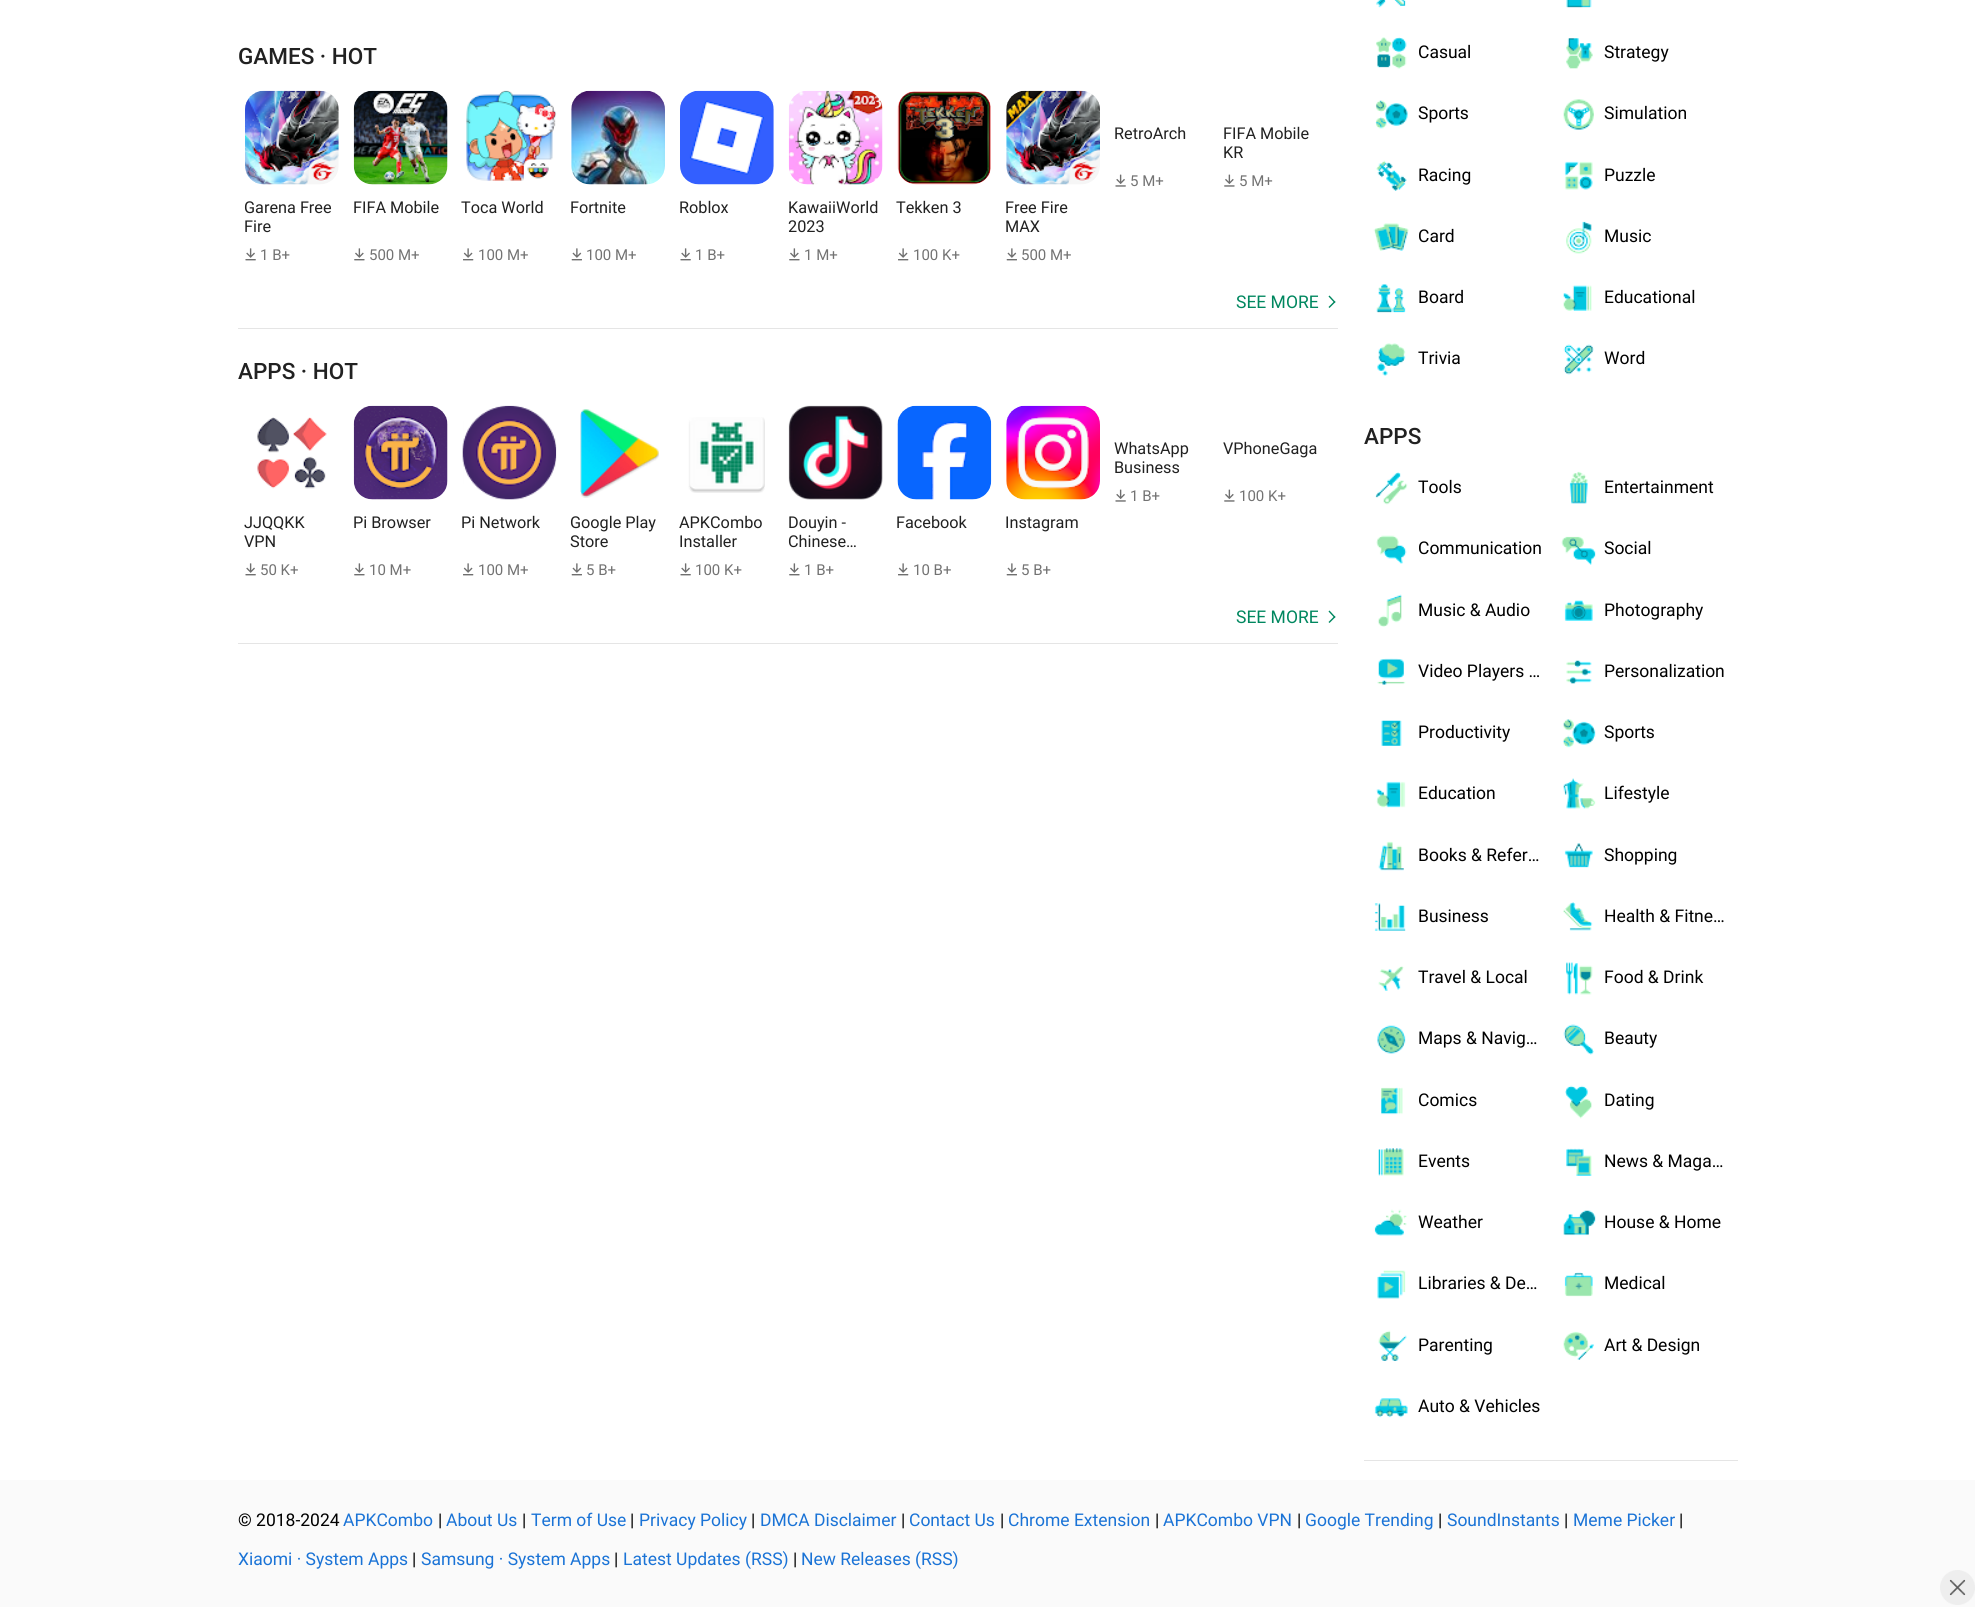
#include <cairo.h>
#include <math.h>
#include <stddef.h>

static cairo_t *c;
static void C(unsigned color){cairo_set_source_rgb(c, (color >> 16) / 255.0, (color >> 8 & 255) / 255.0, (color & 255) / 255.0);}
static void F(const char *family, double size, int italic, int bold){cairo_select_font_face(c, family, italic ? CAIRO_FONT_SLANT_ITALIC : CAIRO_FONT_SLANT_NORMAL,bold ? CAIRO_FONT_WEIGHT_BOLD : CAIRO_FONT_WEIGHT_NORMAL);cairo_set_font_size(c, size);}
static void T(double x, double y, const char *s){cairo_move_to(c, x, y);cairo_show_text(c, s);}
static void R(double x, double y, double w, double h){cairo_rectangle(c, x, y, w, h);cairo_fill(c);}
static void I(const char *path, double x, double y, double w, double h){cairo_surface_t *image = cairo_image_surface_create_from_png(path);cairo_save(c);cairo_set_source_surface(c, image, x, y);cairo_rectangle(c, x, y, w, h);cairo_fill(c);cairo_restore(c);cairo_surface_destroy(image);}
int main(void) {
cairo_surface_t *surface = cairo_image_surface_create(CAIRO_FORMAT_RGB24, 1975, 1607);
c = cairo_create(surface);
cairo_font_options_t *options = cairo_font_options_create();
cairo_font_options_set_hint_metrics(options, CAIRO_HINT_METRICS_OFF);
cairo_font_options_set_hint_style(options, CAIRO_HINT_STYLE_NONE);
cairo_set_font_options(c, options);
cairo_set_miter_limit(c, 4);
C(0xffffff);
cairo_paint(c);
C(0xe5e5e5);
R(238,328,1100,1);
F("Roboto Medium",22.5,0,0);
C(0x212121);
T(238,64,"GAMES · HOT");
F("Roboto",16.25,0,0);
T(1114,139,"RetroArch");
I("1.png",1115,174,11,13);
F("Roboto",15,0,0);
C(0x737373);
T(1130,186,"5 M+");
F("Roboto",16.25,0,0);
C(0x212121);
T(1223,139,"FIFA Mobile");
T(1223,158,"KR");
I("2.png",1224,174,11,13);
F("Roboto",15,0,0);
C(0x737373);
T(1239,186,"5 M+");
I("3.png",245,90,94,95);
F("Roboto",16.25,0,0);
C(0x212121);
T(244,213,"Garena Free");
T(244,232,"Fire");
I("4.png",245,248,11,13);
F("Roboto",15,0,0);
C(0x737373);
T(260,260,"1 B+");
I("5.png",353,90,95,95);
F("Roboto",16.25,0,0);
C(0x212121);
T(353,213,"FIFA Mobile");
I("6.png",354,248,11,13);
F("Roboto",15,0,0);
C(0x737373);
T(369,260,"500 M+");
I("7.png",466,90,91,91);
F("Roboto",16.25,0,0);
C(0x212121);
T(461,213,"Toca World");
I("8.png",463,248,11,13);
F("Roboto",15,0,0);
C(0x737373);
T(478,260,"100 M+");
I("9.png",571,90,94,95);
F("Roboto",16.25,0,0);
C(0x212121);
T(570,213,"Fortnite");
I("10.png",571,248,11,13);
F("Roboto",15,0,0);
C(0x737373);
T(586,260,"100 M+");
I("11.png",680,90,94,95);
F("Roboto",16.25,0,0);
C(0x212121);
T(679,213,"Roblox");
I("4.png",680,248,11,13);
F("Roboto",15,0,0);
C(0x737373);
T(695,260,"1 B+");
I("12.png",788,90,95,95);
F("Roboto",16.25,0,0);
C(0x212121);
T(788,213,"KawaiiWorld");
T(788,232,"2023");
I("6.png",789,248,11,13);
F("Roboto",15,0,0);
C(0x737373);
T(804,260,"1 M+");
I("13.png",897,91,94,94);
F("Roboto",16.25,0,0);
C(0x212121);
T(896,213,"Tekken 3");
I("8.png",898,248,11,13);
F("Roboto",15,0,0);
C(0x737373);
T(913,260,"100 K+");
I("14.png",1006,90,94,95);
F("Roboto",16.25,0,0);
C(0x212121);
T(1005,213,"Free Fire");
T(1005,232,"MAX");
I("10.png",1006,248,11,13);
F("Roboto",15,0,0);
C(0x737373);
T(1021,260,"500 M+");
F("Roboto",17.5,0,0);
C(0x00875f);
T(1236,308,"SEE MORE");
cairo_new_path(c);
cairo_move_to(c,1328.5,296.5);
cairo_line_to(c,1329.5,295.5);
cairo_line_to(c,1335.5,302);
cairo_line_to(c,1334.5,303);
cairo_close_path(c);
cairo_fill(c);
cairo_new_path(c);
cairo_move_to(c,1328.5,307);
cairo_line_to(c,1334.5,301);
cairo_line_to(c,1335.5,302);
cairo_line_to(c,1329.5,308);
cairo_close_path(c);
cairo_fill(c);
C(0xe5e5e5);
R(238,643,1100,1);
F("Roboto Medium",22.5,0,0);
C(0x212121);
T(238,379,"APPS · HOT");
F("Roboto",16.25,0,0);
T(1114,454,"WhatsApp");
T(1114,473,"Business");
I("1.png",1115,489,11,13);
F("Roboto",15,0,0);
C(0x737373);
T(1130,501,"1 B+");
F("Roboto",16.25,0,0);
C(0x212121);
T(1223,454,"VPhoneGaga");
I("2.png",1224,489,11,13);
F("Roboto",15,0,0);
C(0x737373);
T(1239,501,"100 K+");
I("15.png",257,417,70,72);
F("Roboto",16.25,0,0);
C(0x212121);
T(244,528,"JJQQKK");
T(244,547,"VPN");
I("4.png",245,563,11,13);
F("Roboto",15,0,0);
C(0x737373);
T(260,575,"50 K+");
I("16.png",353,405,95,95);
F("Roboto",16.25,0,0);
C(0x212121);
T(353,528,"Pi Browser");
I("6.png",354,563,11,13);
F("Roboto",15,0,0);
C(0x737373);
T(369,575,"10 M+");
I("17.png",462,405,95,95);
F("Roboto",16.25,0,0);
C(0x212121);
T(461,528,"Pi Network");
I("8.png",463,563,11,13);
F("Roboto",15,0,0);
C(0x737373);
T(478,575,"100 M+");
I("18.png",580,409,79,89);
F("Roboto",16.25,0,0);
C(0x212121);
T(570,528,"Google Play");
T(570,547,"Store");
I("10.png",571,563,11,13);
F("Roboto",15,0,0);
C(0x737373);
T(586,575,"5 B+");
I("19.png",688,417,77,76);
F("Roboto",16.25,0,0);
C(0x212121);
T(679,528,"APKCombo");
T(679,547,"Installer");
I("4.png",680,563,11,13);
F("Roboto",15,0,0);
C(0x737373);
T(695,575,"100 K+");
I("20.png",788,405,95,95);
F("Roboto",16.25,0,0);
C(0x212121);
T(788,528,"Douyin -");
T(788,547,"Chinese…");
I("6.png",789,563,11,13);
F("Roboto",15,0,0);
C(0x737373);
T(804,575,"1 B+");
I("21.png",897,405,95,95);
F("Roboto",16.25,0,0);
C(0x212121);
T(896,528,"Facebook");
I("8.png",898,563,11,13);
F("Roboto",15,0,0);
C(0x737373);
T(913,575,"10 B+");
I("22.png",1006,405,94,95);
F("Roboto",16.25,0,0);
C(0x212121);
T(1005,528,"Instagram");
I("10.png",1006,563,11,13);
F("Roboto",15,0,0);
C(0x737373);
T(1021,575,"5 B+");
F("Roboto",17.5,0,0);
C(0x00875f);
T(1236,623,"SEE MORE");
cairo_new_path(c);
cairo_move_to(c,1328.5,611.5);
cairo_line_to(c,1329.5,610.5);
cairo_line_to(c,1335.5,617);
cairo_line_to(c,1334.5,618);
cairo_close_path(c);
cairo_fill(c);
cairo_new_path(c);
cairo_move_to(c,1328.5,622);
cairo_line_to(c,1334.5,616);
cairo_line_to(c,1335.5,617);
cairo_line_to(c,1329.5,623);
cairo_close_path(c);
cairo_fill(c);
I("23.png",1376,0,30,8);
I("24.png",1566,0,26,8);
I("25.png",1376,37,31,32);
C(0x000000);
T(1418,58,"Casual");
I("26.png",1566,38,27,31);
T(1604,58,"Strategy");
I("27.png",1375,100,33,29);
T(1418,119,"Sports");
I("28.png",1563,99,31,31);
T(1604,119,"Simulation");
I("29.png",1376,160,31,31);
T(1418,181,"Racing");
I("30.png",1564,161,29,29);
T(1604,181,"Puzzle");
I("31.png",1373,223,36,28);
T(1418,242,"Card");
I("32.png",1566,221,26,33);
T(1604,242,"Music");
I("33.png",1376,284,30,29);
T(1418,303,"Board");
I("34.png",1563,285,29,26);
T(1604,303,"Educational");
I("35.png",1377,343,29,33);
T(1418,364,"Trivia");
I("36.png",1563,344,31,31);
T(1604,364,"Word");
F("Roboto Medium",22.5,0,0);
C(0x212121);
T(1364,444,"APPS");
I("37.png",1375,472,33,33);
F("Roboto",17.5,0,0);
C(0x000000);
T(1418,493,"Tools");
I("38.png",1569,471,19,33);
T(1604,493,"Entertainment");
I("39.png",1376,535,31,29);
T(1418,554,"Communication");
I("40.png",1561,536,35,29);
T(1604,554,"Social");
I("41.png",1377,594,25,33);
T(1418,616,"Music & Audio");
I("42.png",1564,600,29,21);
T(1604,616,"Photography");
I("43.png",1377,658,29,27);
T(1418,677,"Video Players …");
I("44.png",1566,660,26,24);
T(1604,677,"Personalization");
I("45.png",1381,720,21,26);
T(1418,738,"Productivity");
I("46.png",1562,719,34,29);
T(1604,738,"Sports");
I("47.png",1376,781,30,27);
T(1418,799,"Education");
I("48.png",1563,778,33,31);
T(1604,799,"Lifestyle");
I("49.png",1378,841,26,30);
T(1418,861,"Books & Refer…");
I("50.png",1564,843,29,25);
T(1604,861,"Shopping");
I("51.png",1374,903,32,28);
T(1418,922,"Business");
I("52.png",1563,902,30,29);
T(1604,922,"Health & Fitne…");
I("53.png",1378,966,26,25);
T(1418,983,"Travel & Local");
I("54.png",1566,962,27,33);
T(1604,983,"Food & Drink");
I("55.png",1377,1025,29,29);
T(1418,1044,"Maps & Navig…");
I("56.png",1563,1024,31,31);
T(1604,1044,"Beauty");
I("57.png",1381,1087,22,28);
T(1418,1106,"Comics");
I("58.png",1565,1085,27,34);
T(1604,1106,"Dating");
I("59.png",1378,1148,26,28);
T(1418,1167,"Events");
I("60.png",1566,1148,26,28);
T(1604,1167,"News & Maga…");
I("61.png",1374,1209,33,27);
T(1418,1228,"Weather");
I("62.png",1563,1210,33,26);
T(1604,1228,"House & Home");
I("63.png",1377,1270,29,29);
T(1418,1289,"Libraries & De…");
I("64.png",1564,1272,29,25);
T(1604,1289,"Medical");
I("65.png",1378,1330,29,31);
T(1418,1351,"Parenting");
I("66.png",1563,1331,31,29);
T(1604,1351,"Art & Design");
I("67.png",1374,1398,34,20);
T(1418,1412,"Auto & Vehicles");
C(0xe5e5e5);
R(1364,1460,374,1);
C(0xfafafa);
R(0,1480,1975,127);
C(0x000000);
T(238,1526,"© 2018-2024");
C(0x1a73d6);
T(343,1526,"APKCombo");
C(0x000000);
T(438,1526,"|");
C(0x1a73d6);
T(446,1526,"About Us");
C(0x000000);
T(522,1526,"|");
C(0x1a73d6);
T(531,1526,"Term of Use");
C(0x000000);
T(630,1526,"|");
C(0x1a73d6);
T(639,1526,"Privacy Policy");
C(0x000000);
T(751,1526,"|");
C(0x1a73d6);
T(760,1526,"DMCA Disclaimer");
C(0x000000);
T(901,1526,"|");
C(0x1a73d6);
T(909,1526,"Contact Us");
C(0x000000);
T(1000,1526,"|");
C(0x1a73d6);
T(1008,1526,"Chrome Extension");
C(0x000000);
T(1155,1526,"|");
C(0x1a73d6);
T(1163,1526,"APKCombo VPN");
C(0x000000);
T(1297,1526,"|");
C(0x1a73d6);
T(1305,1526,"Google Trending");
C(0x000000);
T(1438,1526,"|");
C(0x1a73d6);
T(1447,1526,"SoundInstants");
C(0x000000);
T(1564,1526,"|");
C(0x1a73d6);
T(1573,1526,"Meme Picker");
C(0x000000);
T(1679,1526,"|");
C(0x1a73d6);
T(238,1565,"Xiaomi · System Apps");
C(0x000000);
T(412,1565,"|");
C(0x1a73d6);
T(421,1565,"Samsung · System Apps");
C(0x000000);
T(614,1565,"|");
C(0x1a73d6);
T(623,1565,"Latest Updates (RSS)");
C(0x000000);
T(793,1565,"|");
C(0x1a73d6);
T(801,1565,"New Releases (RSS)");
I("68.png",1940,1570,35,35);
cairo_surface_write_to_png(surface, "o.png");
cairo_font_options_destroy(options);
cairo_destroy(c);
cairo_surface_destroy(surface);
return 0;
}
